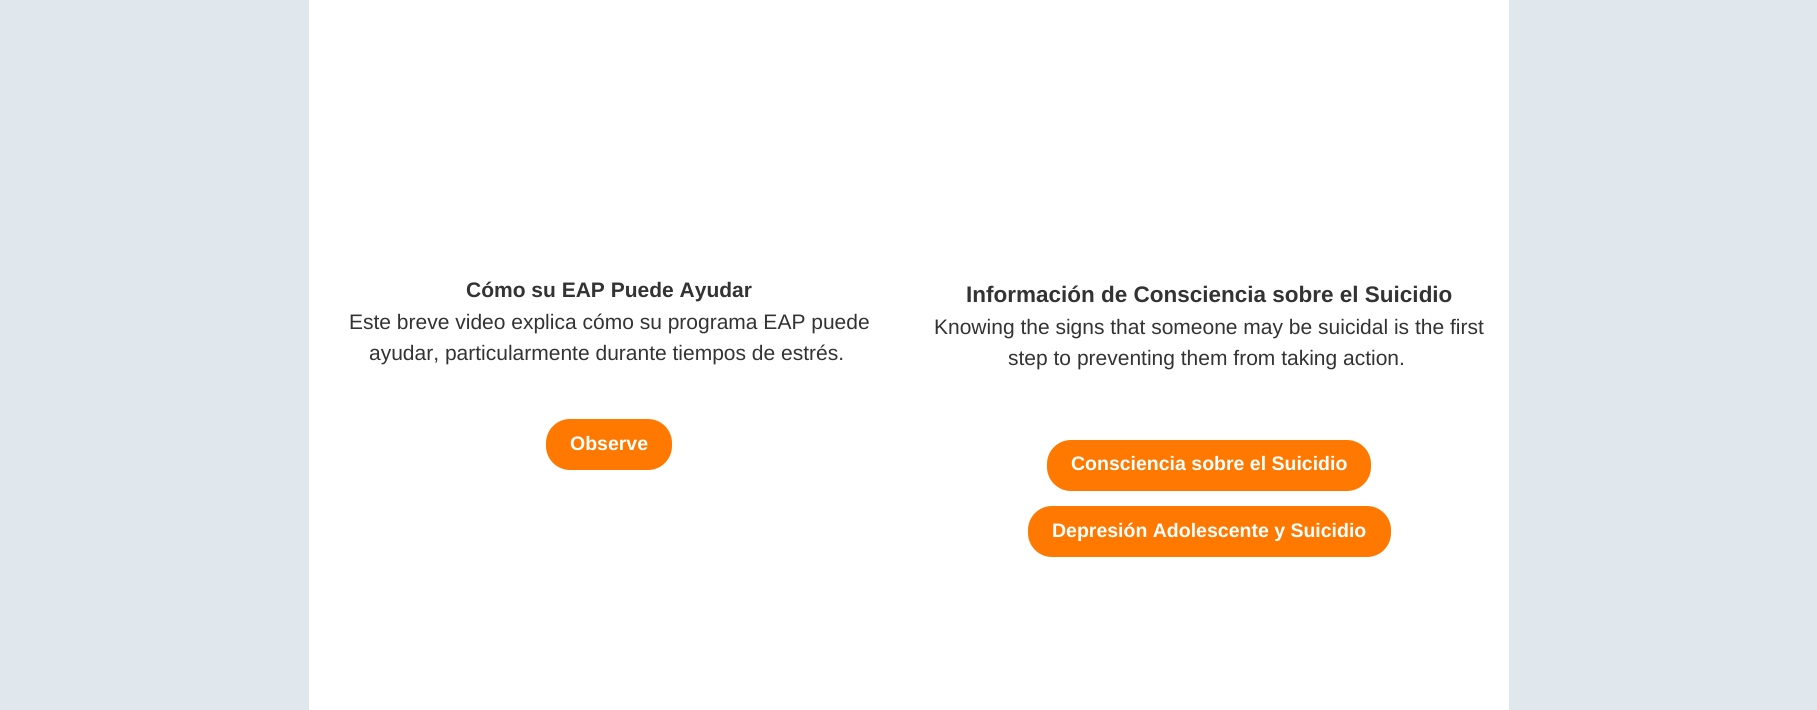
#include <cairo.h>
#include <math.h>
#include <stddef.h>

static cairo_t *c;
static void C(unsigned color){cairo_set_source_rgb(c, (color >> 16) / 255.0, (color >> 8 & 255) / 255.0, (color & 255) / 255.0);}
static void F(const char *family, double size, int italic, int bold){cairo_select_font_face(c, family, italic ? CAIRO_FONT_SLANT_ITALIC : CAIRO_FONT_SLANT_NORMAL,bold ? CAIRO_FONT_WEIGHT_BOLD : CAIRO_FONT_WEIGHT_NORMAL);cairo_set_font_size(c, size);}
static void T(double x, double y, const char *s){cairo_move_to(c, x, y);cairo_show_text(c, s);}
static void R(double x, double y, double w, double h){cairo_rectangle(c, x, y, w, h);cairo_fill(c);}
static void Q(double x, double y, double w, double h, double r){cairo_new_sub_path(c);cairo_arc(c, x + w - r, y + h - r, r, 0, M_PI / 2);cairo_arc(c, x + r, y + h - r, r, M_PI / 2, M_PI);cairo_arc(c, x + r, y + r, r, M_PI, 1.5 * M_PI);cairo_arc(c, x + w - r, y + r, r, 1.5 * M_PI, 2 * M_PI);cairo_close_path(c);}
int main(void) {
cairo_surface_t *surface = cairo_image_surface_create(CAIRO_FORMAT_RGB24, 1817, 710);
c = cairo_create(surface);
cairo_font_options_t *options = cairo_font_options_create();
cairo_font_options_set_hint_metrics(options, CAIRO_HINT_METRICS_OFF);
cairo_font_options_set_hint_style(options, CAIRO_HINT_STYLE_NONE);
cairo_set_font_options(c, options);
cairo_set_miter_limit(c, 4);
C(0xe0e8ee);
cairo_paint(c);
C(0xffffff);
R(309,0,1200,710);
F("Liberation Sans",21,0,1);
C(0x333333);
T(466,297,"Cómo su EAP Puede Ayudar");
F("Liberation Sans",21,0,0);
T(349,329,"Este breve video explica cómo su programa EAP puede");
T(369,360,"ayudar, particularmente durante tiempos de estrés.");
C(0xff7900);
Q(546,419,126,51,24);
cairo_fill(c);
F("Liberation Sans",19.5,0,1);
C(0xffffff);
T(570,450,"Observe");
F("Liberation Sans",22.5,0,1);
C(0x333333);
T(966,302,"Información de Consciencia sobre el Suicidio");
F("Liberation Sans",21,0,0);
T(934,334,"Knowing the signs that someone may be suicidal is the first");
T(1008,365,"step to preventing them from taking action.");
C(0xff7900);
Q(1047,440,324,51,24);
cairo_fill(c);
F("Liberation Sans",19.5,0,1);
C(0xffffff);
T(1071,470,"Consciencia sobre el Suicidio");
C(0xff7900);
Q(1028,506,363,51,24);
cairo_fill(c);
C(0xffffff);
T(1052,537,"Depresión Adolescente y Suicidio");
cairo_surface_write_to_png(surface, "o.png");
cairo_font_options_destroy(options);
cairo_destroy(c);
cairo_surface_destroy(surface);
return 0;
}
